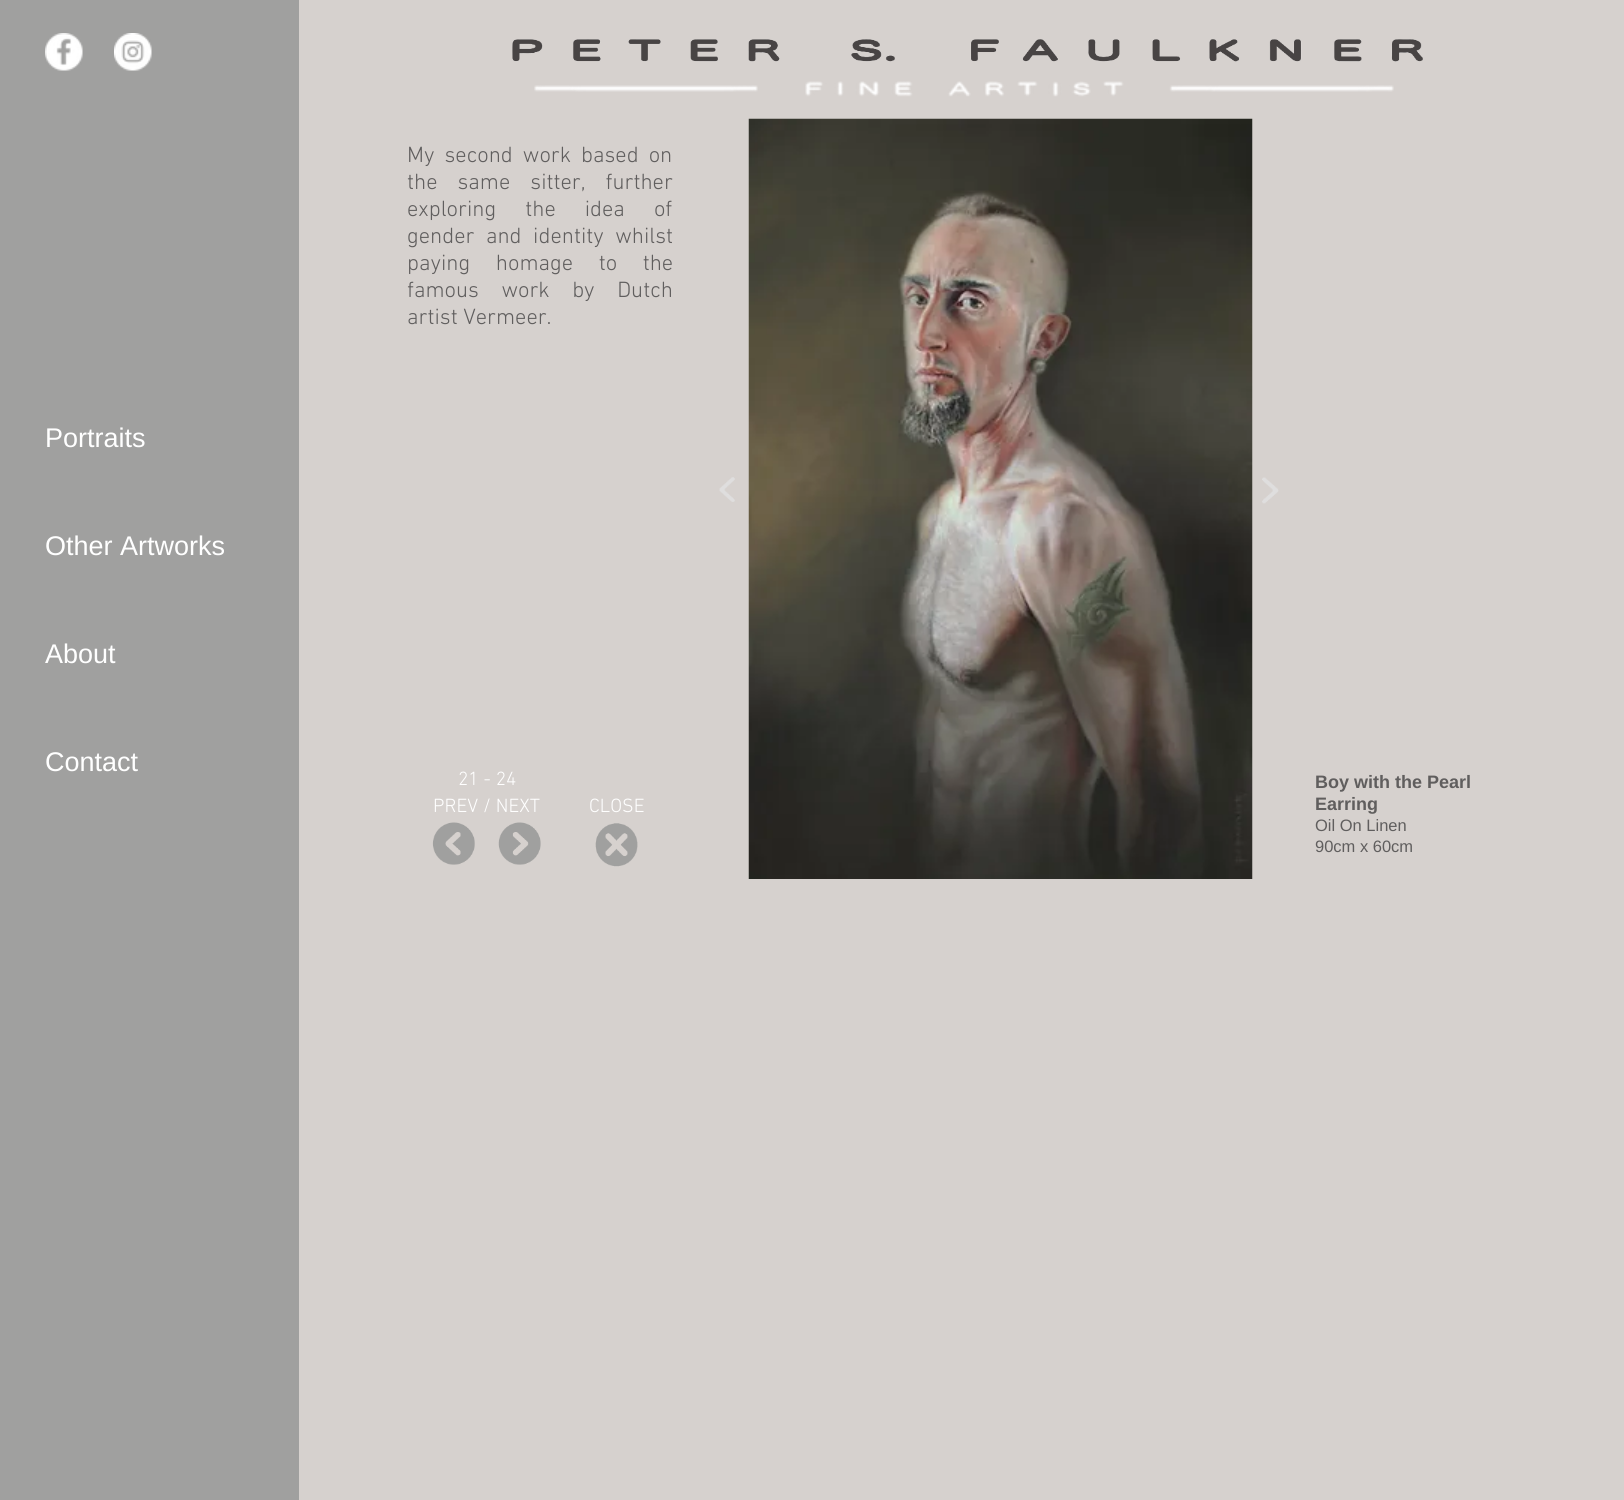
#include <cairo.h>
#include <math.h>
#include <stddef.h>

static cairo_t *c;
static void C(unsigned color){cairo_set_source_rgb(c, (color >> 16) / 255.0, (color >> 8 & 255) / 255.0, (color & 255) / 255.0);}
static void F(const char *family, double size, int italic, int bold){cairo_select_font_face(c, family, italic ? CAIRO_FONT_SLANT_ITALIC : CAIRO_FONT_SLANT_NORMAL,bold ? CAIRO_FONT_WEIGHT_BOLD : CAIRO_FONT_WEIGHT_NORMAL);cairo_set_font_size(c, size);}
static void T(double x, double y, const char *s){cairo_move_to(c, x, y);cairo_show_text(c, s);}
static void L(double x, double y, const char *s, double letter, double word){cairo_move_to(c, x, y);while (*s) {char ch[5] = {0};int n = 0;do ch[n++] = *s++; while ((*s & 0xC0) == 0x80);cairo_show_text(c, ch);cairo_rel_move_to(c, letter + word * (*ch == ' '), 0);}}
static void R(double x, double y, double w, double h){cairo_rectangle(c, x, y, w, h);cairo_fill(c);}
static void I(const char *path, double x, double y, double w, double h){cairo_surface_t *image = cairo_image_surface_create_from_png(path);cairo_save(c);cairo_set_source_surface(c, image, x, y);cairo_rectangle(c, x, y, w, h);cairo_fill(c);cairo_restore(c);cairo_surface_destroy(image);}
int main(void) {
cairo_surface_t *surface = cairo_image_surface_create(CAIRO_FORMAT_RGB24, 1624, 1500);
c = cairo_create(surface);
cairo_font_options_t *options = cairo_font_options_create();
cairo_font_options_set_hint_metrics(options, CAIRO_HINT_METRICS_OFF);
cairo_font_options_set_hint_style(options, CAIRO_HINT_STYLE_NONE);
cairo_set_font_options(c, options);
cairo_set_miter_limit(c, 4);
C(0xd6d1ce);
cairo_paint(c);
C(0xa0a09f);
R(0,0,299,1500);
I("1.png",45,33,38,38);
I("2.png",114,33,38,38);
I("3.png",512,39,911,23);
I("4.png",534,81,860,16);
F("Liberation Sans",27,0,0);
C(0xffffff);
T(45,447,"Portraits");
T(45,555,"Other Artworks");
T(45,663,"About");
T(45,771,"Contact");
F("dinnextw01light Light",22.5,0,0);
C(0x605e5e);
L(407,162,"My second work based on",0,4.5);
L(407,189,"the same sitter, further",0,14.5);
L(407,216,"exploring the idea of",0,23.5);
L(407,243,"gender and identity whilst",0,6);
L(407,270,"paying homage to the",0,20);
L(407,297,"famous work by Dutch",0,17);
T(407,324,"artist Vermeer.");
I("5.png",748,118,505,761);
I("6.png",719,477,16,25);
I("7.png",1262,477,17,27);
F("dinnextw01light Light",19.5,0,0);
C(0xffffff);
T(458,785,"21 - 24");
T(433,812,"PREV / NEXT");
T(589,812,"CLOSE");
I("8.png",432,822,43,43);
I("9.png",498,822,43,43);
I("10.png",595,823,43,44);
F("Liberation Sans",18,0,1);
C(0x605e5e);
T(1315,788,"Boy with the Pearl");
T(1315,810,"Earring");
F("Liberation Sans",16.5,0,0);
T(1315,831,"Oil On Linen");
T(1315,852,"90cm x 60cm");
cairo_surface_write_to_png(surface, "o.png");
cairo_font_options_destroy(options);
cairo_destroy(c);
cairo_surface_destroy(surface);
return 0;
}
